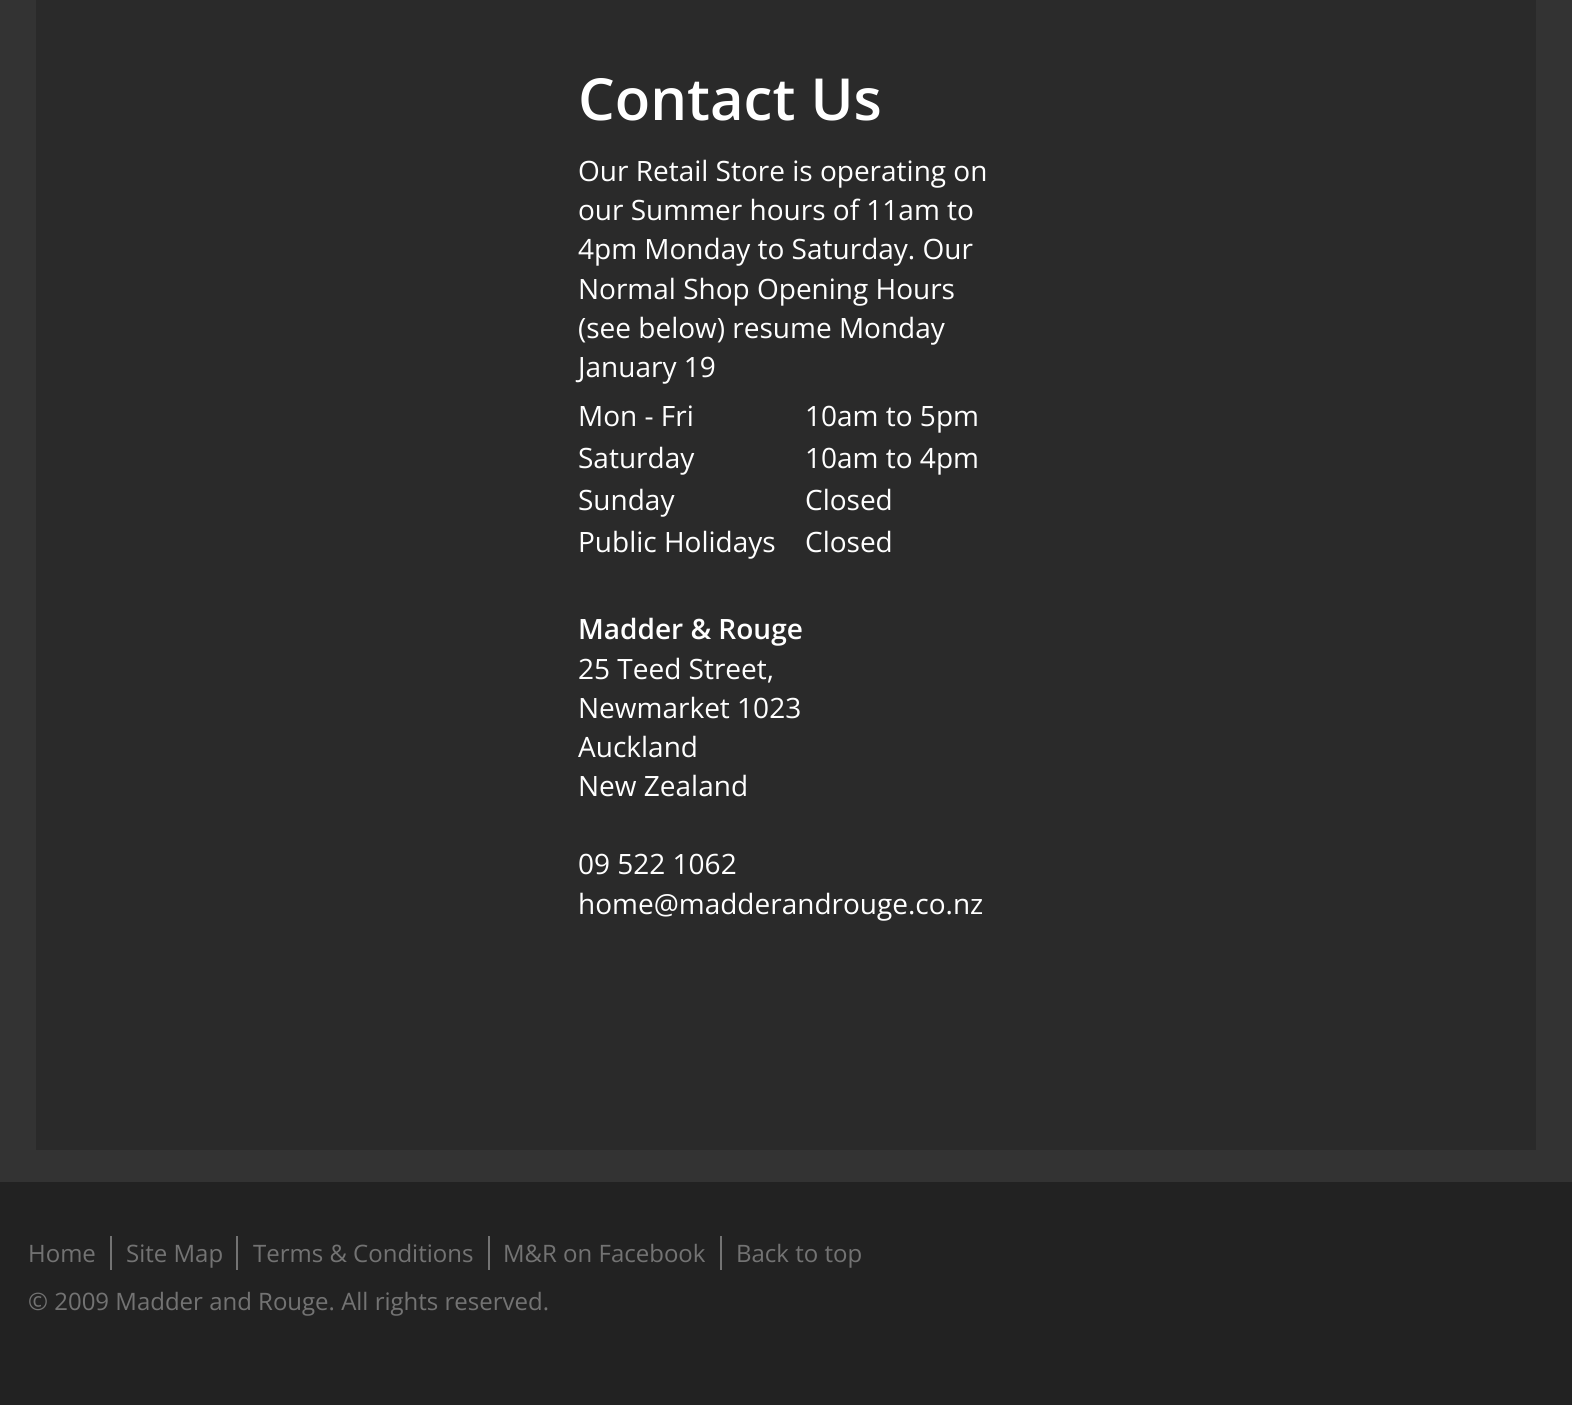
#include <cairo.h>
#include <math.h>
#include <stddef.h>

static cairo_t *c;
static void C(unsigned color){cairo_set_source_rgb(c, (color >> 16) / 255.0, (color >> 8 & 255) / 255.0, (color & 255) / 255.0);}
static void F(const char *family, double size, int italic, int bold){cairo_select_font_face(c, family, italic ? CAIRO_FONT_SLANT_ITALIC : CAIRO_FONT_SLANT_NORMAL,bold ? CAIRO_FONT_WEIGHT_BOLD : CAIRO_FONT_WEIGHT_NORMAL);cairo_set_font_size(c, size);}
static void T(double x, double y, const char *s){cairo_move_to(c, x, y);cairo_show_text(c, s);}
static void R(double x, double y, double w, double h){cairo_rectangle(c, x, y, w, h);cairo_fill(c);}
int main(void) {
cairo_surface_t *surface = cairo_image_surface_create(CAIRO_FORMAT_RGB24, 1572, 1405);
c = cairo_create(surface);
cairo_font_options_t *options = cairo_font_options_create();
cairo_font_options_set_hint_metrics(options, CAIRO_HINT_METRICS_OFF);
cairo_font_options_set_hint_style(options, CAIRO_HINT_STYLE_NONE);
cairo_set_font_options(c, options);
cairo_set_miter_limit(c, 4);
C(0x333333);
cairo_paint(c);
C(0x2a2a2a);
R(36,0,1500,1150);
F("Open Sans SemiBold",58,0,0);
C(0xffffff);
T(578,120,"Contact Us");
F("Open Sans",28,0,0);
T(578,181,"Our Retail Store is operating on");
T(578,220,"our Summer hours of 11am to");
T(578,259,"4pm Monday to Saturday. Our");
T(578,299,"Normal Shop Opening Hours");
T(578,338,"(see below) resume Monday");
T(578,377,"January 19");
T(578,426,"Mon - Fri");
T(578,468,"Saturday");
T(578,510,"Sunday");
T(578,552,"Public Holidays");
T(805,426,"10am to 5pm");
T(805,468,"10am to 4pm");
T(805,510,"Closed");
T(805,552,"Closed");
F("Open Sans SemiBold",28,0,0);
T(578,639,"Madder & Rouge");
F("Open Sans",28,0,0);
T(578,679,"25 Teed Street,");
T(578,718,"Newmarket 1023");
T(578,757,"Auckland");
T(578,796,"New Zealand");
T(578,874,"09 522 1062");
T(578,914,"home@madderandrouge.co.nz");
C(0x222222);
R(0,1182,1572,223);
F("Open Sans",24,0,0);
C(0x737373);
T(28,1262,"Home");
T(126,1262,"Site Map");
R(110,1236,2,34);
T(253,1262,"Terms & Conditions");
R(236,1236,2,34);
T(503,1262,"M&R on Facebook");
R(488,1236,2,34);
T(736,1262,"Back to top");
R(720,1236,2,34);
T(28,1310,"© 2009 Madder and Rouge. All rights reserved.");
cairo_surface_write_to_png(surface, "o.png");
cairo_font_options_destroy(options);
cairo_destroy(c);
cairo_surface_destroy(surface);
return 0;
}
